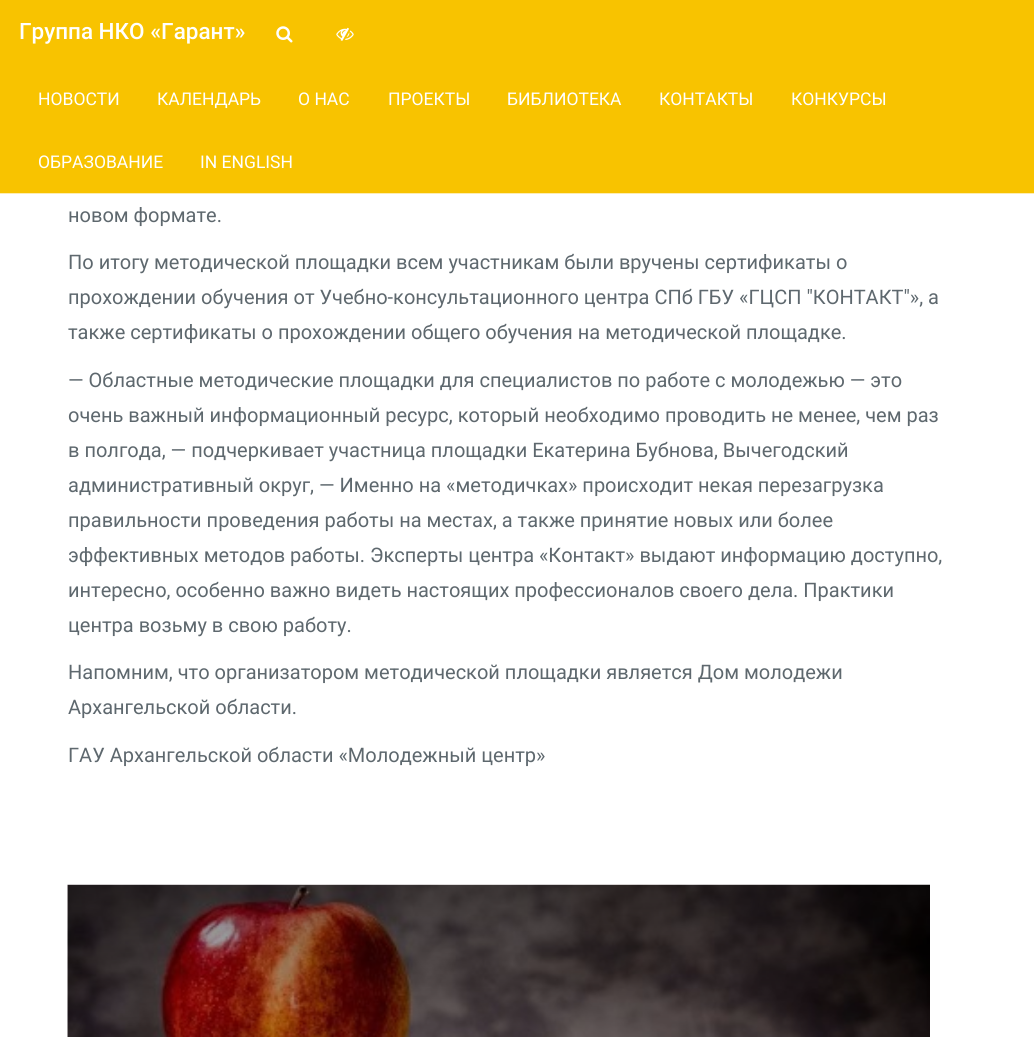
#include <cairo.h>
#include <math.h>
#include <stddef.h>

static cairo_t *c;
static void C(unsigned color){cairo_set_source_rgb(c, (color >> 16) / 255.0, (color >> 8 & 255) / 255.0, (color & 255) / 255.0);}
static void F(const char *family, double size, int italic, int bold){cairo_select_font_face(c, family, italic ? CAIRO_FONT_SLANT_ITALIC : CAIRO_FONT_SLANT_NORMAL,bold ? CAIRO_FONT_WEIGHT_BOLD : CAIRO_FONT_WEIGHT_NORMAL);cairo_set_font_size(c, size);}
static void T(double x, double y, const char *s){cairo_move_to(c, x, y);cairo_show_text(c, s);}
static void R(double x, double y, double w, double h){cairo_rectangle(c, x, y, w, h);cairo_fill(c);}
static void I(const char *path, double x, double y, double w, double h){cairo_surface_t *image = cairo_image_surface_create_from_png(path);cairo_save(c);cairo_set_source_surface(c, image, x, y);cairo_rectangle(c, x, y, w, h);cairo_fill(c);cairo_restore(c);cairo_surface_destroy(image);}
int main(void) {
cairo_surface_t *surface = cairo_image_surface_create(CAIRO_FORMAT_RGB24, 1034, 1037);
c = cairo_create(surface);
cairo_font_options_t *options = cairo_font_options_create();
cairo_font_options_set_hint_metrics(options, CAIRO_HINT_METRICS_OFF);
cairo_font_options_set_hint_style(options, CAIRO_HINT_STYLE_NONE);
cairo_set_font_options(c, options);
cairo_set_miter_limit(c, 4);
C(0xffffff);
cairo_paint(c);
C(0xf8c300);
R(0,0,1034,193);
C(0xfdedb3);
R(0,193,1034,1);
F("Roboto Medium",22.5,0,0);
C(0xffffff);
T(19,39,"Группа НКО «Гарант»");
I("1.png",276,26,17,17);
I("2.png",336,27,18,14);
F("Roboto",17.5,0,0);
T(38,105,"НОВОСТИ");
T(157,105,"КАЛЕНДАРЬ");
T(298,105,"О НАС");
T(388,105,"ПРОЕКТЫ");
T(507,105,"БИБЛИОТЕКА");
T(659,105,"КОНТАКТЫ");
T(791,105,"КОНКУРСЫ");
T(38,168,"ОБРАЗОВАНИЕ");
T(200,168,"IN ENGLISH");
F("Roboto",20,0,0);
C(0x5e686e);
T(68,222,"новом формате.");
T(68,269,"По итогу методической площадки всем участникам были вручены сертификаты о");
T(68,304,"прохождении обучения от Учебно-консультационного центра СПб ГБУ «ГЦСП \"КОНТАКТ\"», а");
T(68,339,"также сертификаты о прохождении общего обучения на методической площадке.");
T(68,387,"— Областные методические площадки для специалистов по работе с молодежью — это");
T(68,422,"очень важный информационный ресурс, который необходимо проводить не менее, чем раз");
T(68,457,"в полгода, — подчеркивает участница площадки Екатерина Бубнова, Вычегодский");
T(68,492,"административный округ, — Именно на «методичках» происходит некая перезагрузка");
T(68,527,"правильности проведения работы на местах, а также принятие новых или более");
T(68,562,"эффективных методов работы. Эксперты центра «Контакт» выдают информацию доступно,");
T(68,597,"интересно, особенно важно видеть настоящих профессионалов своего дела. Практики");
T(68,632,"центра возьму в свою работу.");
T(68,679,"Напомним, что организатором методической площадки является Дом молодежи");
T(68,714,"Архангельской области.");
T(68,762,"ГАУ Архангельской области «Молодежный центр»");
I("3.png",67,884,863,153);
cairo_surface_write_to_png(surface, "o.png");
cairo_font_options_destroy(options);
cairo_destroy(c);
cairo_surface_destroy(surface);
return 0;
}
